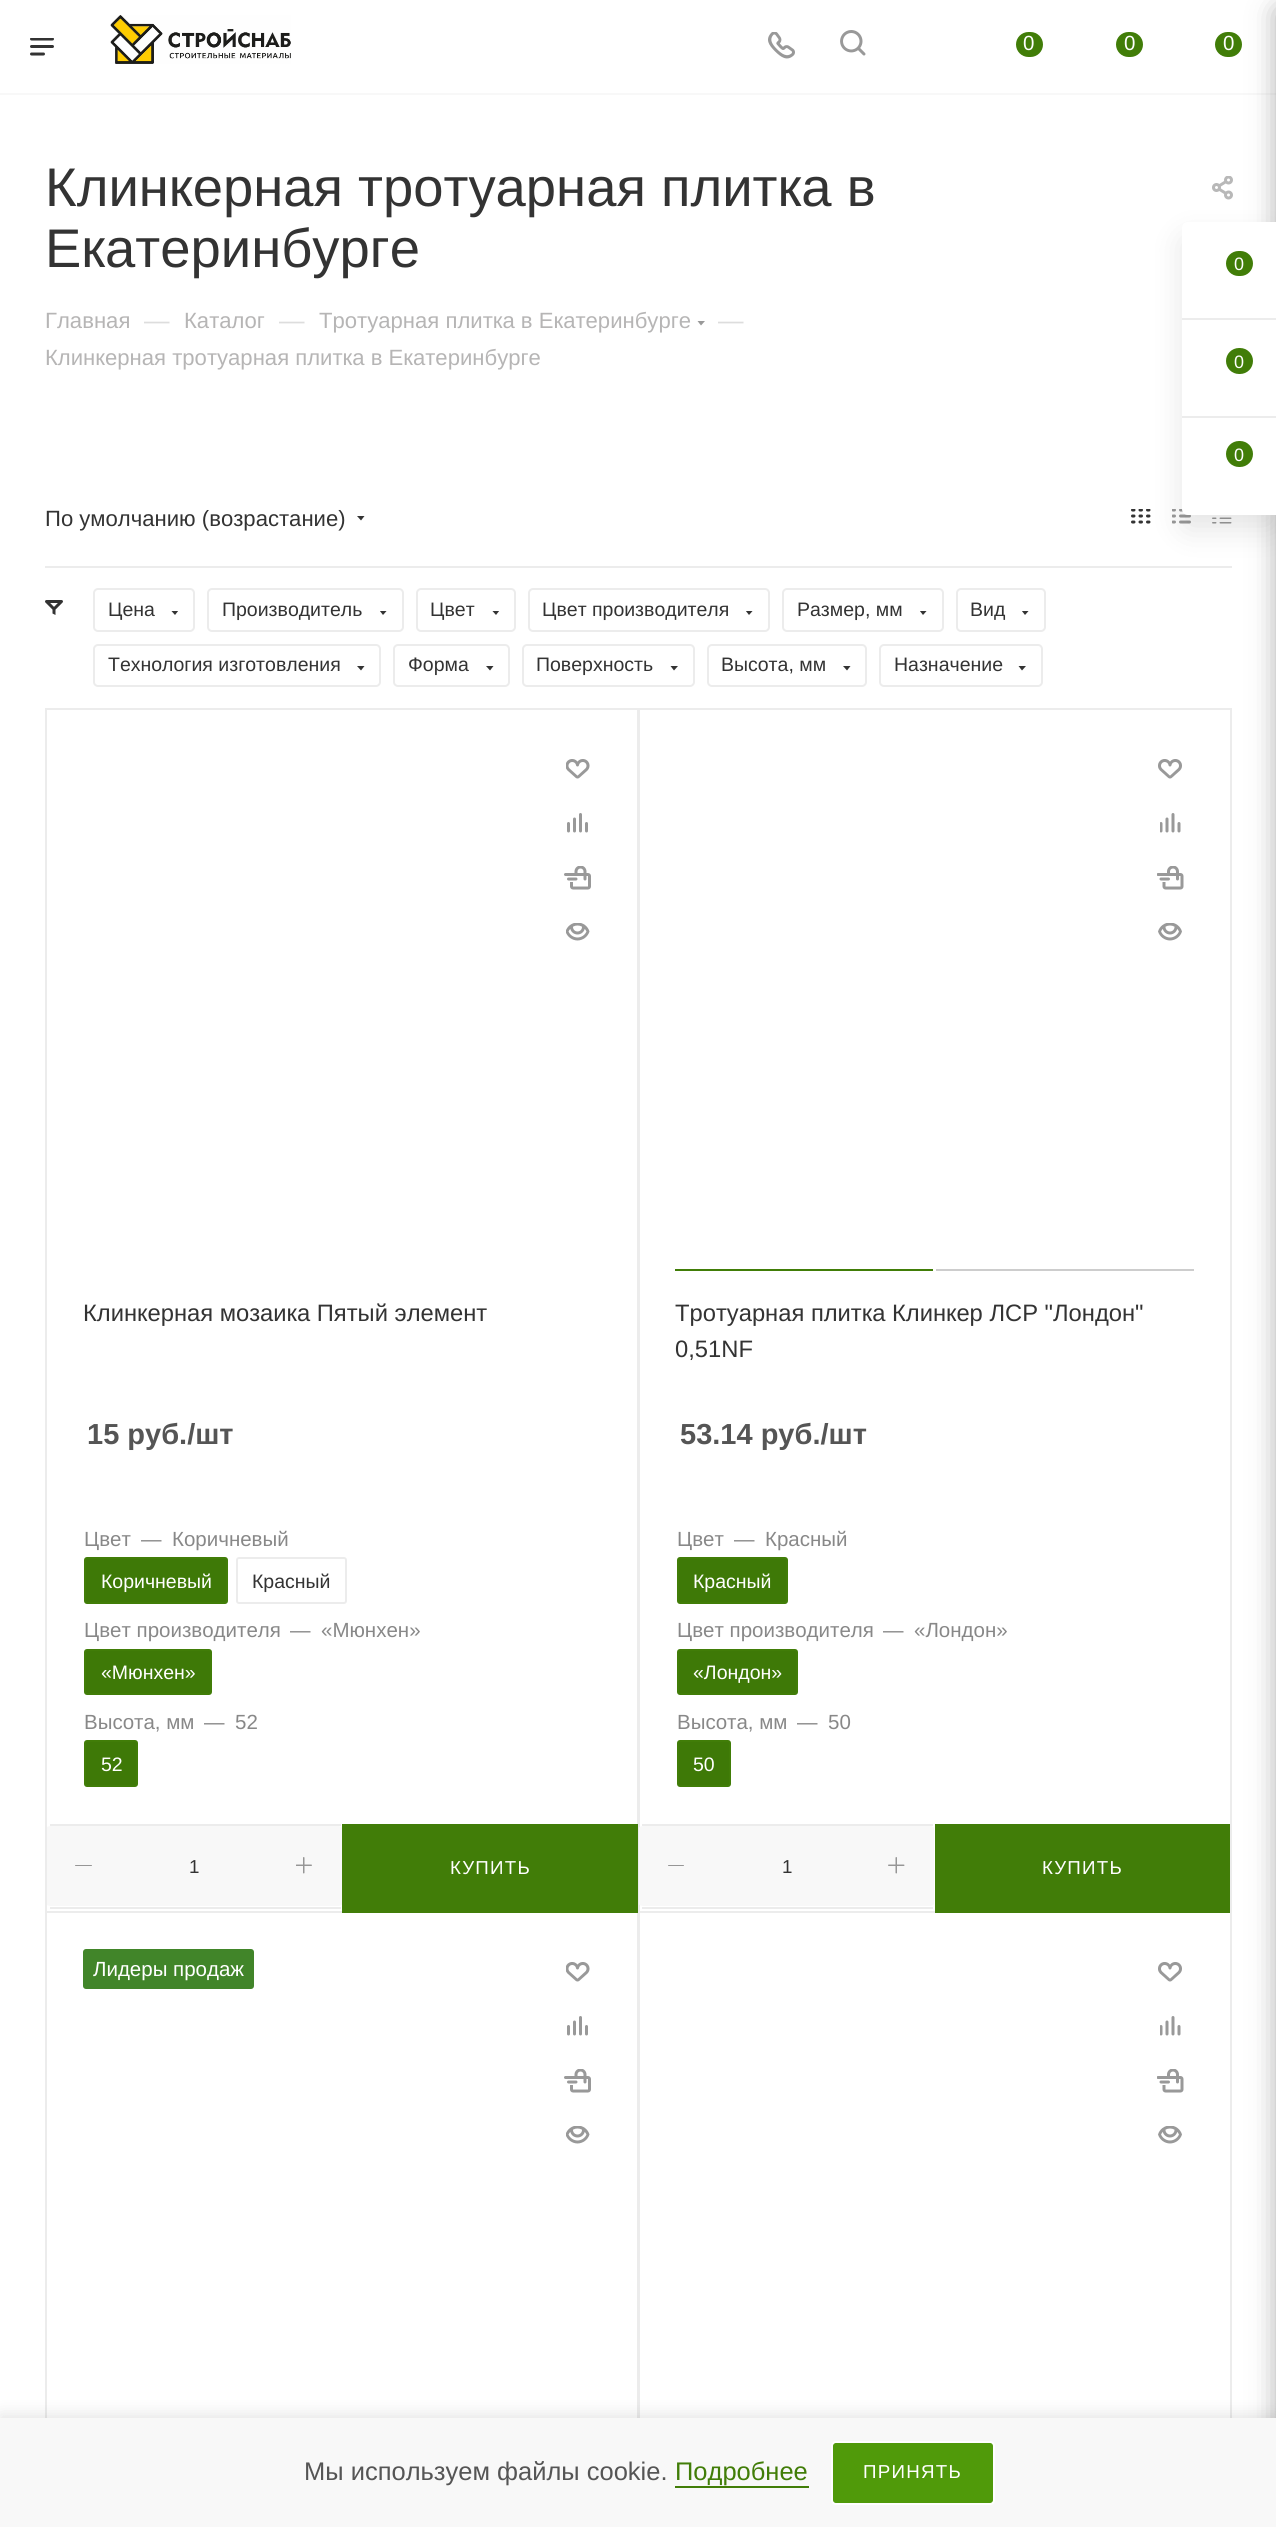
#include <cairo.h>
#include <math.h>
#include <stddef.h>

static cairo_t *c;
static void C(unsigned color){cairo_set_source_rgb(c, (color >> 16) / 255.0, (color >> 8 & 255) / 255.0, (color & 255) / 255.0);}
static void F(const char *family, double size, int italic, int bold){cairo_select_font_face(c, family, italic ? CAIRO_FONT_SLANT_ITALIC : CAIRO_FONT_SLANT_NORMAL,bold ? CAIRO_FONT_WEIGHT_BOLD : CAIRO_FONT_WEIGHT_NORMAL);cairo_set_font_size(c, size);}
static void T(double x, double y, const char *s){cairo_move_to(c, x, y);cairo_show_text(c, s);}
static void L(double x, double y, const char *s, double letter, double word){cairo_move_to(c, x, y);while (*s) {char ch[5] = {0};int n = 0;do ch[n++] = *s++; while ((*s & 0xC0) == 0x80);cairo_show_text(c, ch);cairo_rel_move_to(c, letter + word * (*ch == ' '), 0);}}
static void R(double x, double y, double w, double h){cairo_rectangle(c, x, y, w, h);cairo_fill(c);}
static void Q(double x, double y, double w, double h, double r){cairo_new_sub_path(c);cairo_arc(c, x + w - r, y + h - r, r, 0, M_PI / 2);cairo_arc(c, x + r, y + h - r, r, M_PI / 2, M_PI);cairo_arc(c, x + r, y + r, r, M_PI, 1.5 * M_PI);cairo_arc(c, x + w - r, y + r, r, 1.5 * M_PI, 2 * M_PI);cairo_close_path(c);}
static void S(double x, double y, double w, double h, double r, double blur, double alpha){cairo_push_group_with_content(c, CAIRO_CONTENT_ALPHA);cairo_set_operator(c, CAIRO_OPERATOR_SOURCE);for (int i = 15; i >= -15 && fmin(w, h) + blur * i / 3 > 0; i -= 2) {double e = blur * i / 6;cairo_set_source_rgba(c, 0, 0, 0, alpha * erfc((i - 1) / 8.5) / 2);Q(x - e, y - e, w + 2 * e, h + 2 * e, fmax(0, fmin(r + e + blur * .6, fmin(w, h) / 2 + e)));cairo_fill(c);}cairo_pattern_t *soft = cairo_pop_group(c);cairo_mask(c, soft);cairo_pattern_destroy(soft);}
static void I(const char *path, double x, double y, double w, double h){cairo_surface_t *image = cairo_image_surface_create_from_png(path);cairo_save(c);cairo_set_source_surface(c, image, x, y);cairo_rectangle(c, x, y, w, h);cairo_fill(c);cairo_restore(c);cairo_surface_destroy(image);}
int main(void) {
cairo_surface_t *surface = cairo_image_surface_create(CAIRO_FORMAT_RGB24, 1276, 2527);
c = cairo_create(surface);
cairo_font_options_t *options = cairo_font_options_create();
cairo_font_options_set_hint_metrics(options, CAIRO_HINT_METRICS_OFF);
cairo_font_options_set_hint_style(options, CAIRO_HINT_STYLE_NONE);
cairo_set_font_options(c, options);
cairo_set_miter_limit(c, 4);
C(0xffffff);
cairo_paint(c);
C(0xf8f8f8);
R(0,93,1276,2);
I("1.png",30,38,24,18);
I("2.png",110,15,181,49);
I("3.png",768,32,27,27);
I("4.png",840,30,26,26);
C(0x417d08);
Q(1016,32,27,25,12.5);
cairo_fill(c);
F("Liberation Sans",20.5,0,0);
C(0xffffff);
T(1023,50,"0");
C(0x417d08);
Q(1116,32,27,25,12.5);
cairo_fill(c);
C(0xffffff);
T(1124,50,"0");
C(0x417d08);
Q(1215,32,27,25,12.5);
cairo_fill(c);
C(0xffffff);
T(1223,50,"0");
F("Liberation Sans",54.4,0,0);
C(0x333333);
T(45,206,"Клинкерная тротуарная плитка в");
T(45,267,"Екатеринбурге");
I("5.png",1212,176,21,24);
F("Liberation Sans",22.1,0,0);
C(0xb6b5b5);
T(45,328,"Главная");
F("Liberation Sans",25.5,0,0);
C(0xdddddd);
T(144,329,"—");
F("Liberation Sans",22.1,0,0);
C(0xb6b5b5);
T(184,328,"Каталог");
F("Liberation Sans",25.5,0,0);
C(0xdddddd);
T(279,329,"—");
F("Liberation Sans",22.1,0,0);
C(0xb6b5b5);
T(319,328,"Тротуарная плитка в Екатеринбурге");
C(0x999999);
cairo_set_fill_rule(c,CAIRO_FILL_RULE_EVEN_ODD);
cairo_new_path(c);
cairo_move_to(c,697.5,321);
cairo_line_to(c,705,321);
cairo_line_to(c,701,325.5);
cairo_close_path(c);
cairo_fill(c);
F("Liberation Sans",25.5,0,0);
C(0xdddddd);
T(718,329,"—");
F("Liberation Sans",22.1,0,0);
C(0xb6b5b5);
T(45,365,"Клинкерная тротуарная плитка в Екатеринбурге");
C(0xececec);
R(45,566,1187,2);
C(0x333333);
T(45,526,"По умолчанию (возрастание)");
cairo_new_path(c);
cairo_move_to(c,357,516);
cairo_line_to(c,364.5,516);
cairo_line_to(c,361,520.5);
cairo_close_path(c);
cairo_fill(c);
I("6.png",1131,509,20,15);
I("7.png",1172,509,19,15);
I("8.png",1212,517,20,7);
I("9.png",45,600,18,15);
Q(94,589,100,42,4);
C(0xececec);
cairo_stroke(c);
F("Liberation Sans",19.5,0,0);
C(0x333333);
T(108,616,"Цена");
cairo_save(c);
cairo_set_fill_rule(c,CAIRO_FILL_RULE_WINDING);
cairo_rectangle(c,171,611,8,5);
cairo_clip(c);
cairo_set_fill_rule(c,CAIRO_FILL_RULE_EVEN_ODD);
cairo_new_path(c);
cairo_move_to(c,171,610.5);
cairo_line_to(c,178.5,610.5);
cairo_line_to(c,175,615);
cairo_close_path(c);
cairo_fill(c);
cairo_restore(c);
Q(208,589,195,42,4);
C(0xececec);
cairo_stroke(c);
C(0x333333);
T(222,616,"Производитель");
cairo_save(c);
cairo_set_fill_rule(c,CAIRO_FILL_RULE_WINDING);
cairo_rectangle(c,380,611,7,5);
cairo_clip(c);
cairo_set_fill_rule(c,CAIRO_FILL_RULE_EVEN_ODD);
cairo_new_path(c);
cairo_move_to(c,379.5,610.5);
cairo_line_to(c,387,610.5);
cairo_line_to(c,383,615);
cairo_close_path(c);
cairo_fill(c);
cairo_restore(c);
Q(417,589,98,42,4);
C(0xececec);
cairo_stroke(c);
C(0x333333);
T(430,616,"Цвет");
cairo_save(c);
cairo_set_fill_rule(c,CAIRO_FILL_RULE_WINDING);
cairo_rectangle(c,492,611,8,5);
cairo_clip(c);
cairo_set_fill_rule(c,CAIRO_FILL_RULE_EVEN_ODD);
cairo_new_path(c);
cairo_move_to(c,492,610.5);
cairo_line_to(c,499.5,610.5);
cairo_line_to(c,496,615);
cairo_close_path(c);
cairo_fill(c);
cairo_restore(c);
Q(529,589,240,42,4);
C(0xececec);
cairo_stroke(c);
C(0x333333);
T(542,616,"Цвет производителя");
cairo_save(c);
cairo_set_fill_rule(c,CAIRO_FILL_RULE_WINDING);
cairo_rectangle(c,746,611,7,5);
cairo_clip(c);
cairo_set_fill_rule(c,CAIRO_FILL_RULE_EVEN_ODD);
cairo_new_path(c);
cairo_move_to(c,745.5,610.5);
cairo_line_to(c,753,610.5);
cairo_line_to(c,749,615);
cairo_close_path(c);
cairo_fill(c);
cairo_restore(c);
Q(783,589,160,42,4);
C(0xececec);
cairo_stroke(c);
C(0x333333);
T(797,616,"Размер, мм");
cairo_save(c);
cairo_set_fill_rule(c,CAIRO_FILL_RULE_WINDING);
cairo_rectangle(c,920,611,7,5);
cairo_clip(c);
cairo_set_fill_rule(c,CAIRO_FILL_RULE_EVEN_ODD);
cairo_new_path(c);
cairo_move_to(c,919.5,610.5);
cairo_line_to(c,927,610.5);
cairo_line_to(c,923,615);
cairo_close_path(c);
cairo_fill(c);
cairo_restore(c);
Q(957,589,88,42,4);
C(0xececec);
cairo_stroke(c);
C(0x333333);
T(970,616,"Вид");
cairo_save(c);
cairo_set_fill_rule(c,CAIRO_FILL_RULE_WINDING);
cairo_rectangle(c,1022,611,7,5);
cairo_clip(c);
cairo_set_fill_rule(c,CAIRO_FILL_RULE_EVEN_ODD);
cairo_new_path(c);
cairo_move_to(c,1021.5,610.5);
cairo_line_to(c,1029,610.5);
cairo_line_to(c,1025,615);
cairo_close_path(c);
cairo_fill(c);
cairo_restore(c);
Q(94,645,286,41,4);
C(0xececec);
cairo_stroke(c);
C(0x333333);
T(108,671,"Технология изготовления");
cairo_new_path(c);
cairo_move_to(c,357,666);
cairo_line_to(c,364.5,666);
cairo_line_to(c,361,670.5);
cairo_close_path(c);
cairo_fill(c);
Q(394,645,115,41,4);
C(0xececec);
cairo_stroke(c);
C(0x333333);
T(408,671,"Форма");
cairo_new_path(c);
cairo_move_to(c,486,666);
cairo_line_to(c,493.5,666);
cairo_line_to(c,490,670.5);
cairo_close_path(c);
cairo_fill(c);
Q(523,645,171,41,4);
C(0xececec);
cairo_stroke(c);
C(0x333333);
T(536,671,"Поверхность");
cairo_new_path(c);
cairo_move_to(c,670.5,666);
cairo_line_to(c,678,666);
cairo_line_to(c,674,670.5);
cairo_close_path(c);
cairo_fill(c);
Q(708,645,158,41,4);
C(0xececec);
cairo_stroke(c);
C(0x333333);
T(721,671,"Высота, мм");
cairo_new_path(c);
cairo_move_to(c,843,666);
cairo_line_to(c,850.5,666);
cairo_line_to(c,847,670.5);
cairo_close_path(c);
cairo_fill(c);
Q(880,645,162,41,4);
C(0xececec);
cairo_stroke(c);
C(0x333333);
T(894,671,"Назначение");
cairo_new_path(c);
cairo_move_to(c,1018.5,666);
cairo_line_to(c,1026,666);
cairo_line_to(c,1022,670.5);
cairo_close_path(c);
cairo_fill(c);
cairo_rectangle(c,46,709,592,1203);
C(0xececec);
cairo_stroke(c);
I("10.png",566,759,24,20);
I("11.png",567,813,21,20);
I("12.png",564,866,27,24);
I("13.png",566,923,24,18);
F("Liberation Sans",23.75,0,0);
C(0x333333);
T(83,1321,"Клинкерная мозаика Пятый элемент");
F("Liberation Sans",29,0,1);
C(0x555555);
T(87,1444,"15 руб./шт");
F("Liberation Sans",20.5,0,0);
C(0x888888);
T(84,1546,"Цвет");
T(141,1546,"—");
T(172,1546,"Коричневый");
C(0x3e7907);
Q(85,1558,142,45,2);
cairo_fill_preserve(c);
C(0x417d08);
cairo_stroke(c);
F("Liberation Sans",19.5,0,0);
C(0xffffff);
T(101,1588,"Коричневый");
Q(237,1558,109,45,2);
C(0xececec);
cairo_stroke(c);
C(0x333333);
T(252,1588,"Красный");
F("Liberation Sans",20.5,0,0);
C(0x888888);
T(84,1637,"Цвет производителя");
T(290,1637,"—");
T(321,1637,"«Мюнхен»");
C(0x3e7907);
Q(85,1650,126,44,2);
cairo_fill_preserve(c);
C(0x417d08);
cairo_stroke(c);
F("Liberation Sans",19.5,0,0);
C(0xffffff);
T(101,1679,"«Мюнхен»");
F("Liberation Sans",20.5,0,0);
C(0x888888);
T(84,1729,"Высота, мм");
T(204,1729,"—");
T(235,1729,"52");
C(0x3e7907);
Q(85,1741,52,45,2);
cairo_fill_preserve(c);
C(0x417d08);
cairo_stroke(c);
F("Liberation Sans",19.5,0,0);
C(0xffffff);
T(101,1771,"52");
cairo_save(c);
cairo_set_fill_rule(c,CAIRO_FILL_RULE_WINDING);
cairo_rectangle(c,47,1824,591,89);
cairo_clip(c);
C(0xf8f8f8);
cairo_new_path(c);
cairo_move_to(c,51,1826);
cairo_line_to(c,338,1826);
cairo_curve_to(c,340,1826,342,1827,342,1828);
cairo_line_to(c,342,1904);
cairo_curve_to(c,342,1905,340,1906,338,1906);
cairo_line_to(c,51,1906);
cairo_curve_to(c,49,1906,46,1905,46,1904);
cairo_line_to(c,46,1828);
cairo_curve_to(c,46,1827,49,1826,51,1826);
cairo_close_path(c);
cairo_fill(c);
cairo_restore(c);
C(0xececec);
R(50,1824,291,2);
R(50,1907,291,2);
C(0x969696);
Q(75,1865,17,1,.5);
cairo_fill(c);
F("Liberation Sans",18.75,0,0);
C(0x333333);
T(189,1873,"1");
I("14.png",296,1857,16,17);
cairo_rectangle(c,639,709,592,1203);
C(0xececec);
cairo_stroke(c);
cairo_rectangle(c,46,1912,592,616);
cairo_stroke(c);
C(0x417d08);
R(342,1824,296,89);
C(0xffffff);
L(450,1874,"КУПИТЬ",1.25,0);
I("15.png",1158,759,24,20);
I("16.png",1160,813,21,20);
I("17.png",1157,866,27,24);
I("18.png",1158,923,24,18);
C(0x417d08);
R(675,1269,258,2);
C(0xcdcdcd);
R(936,1269,258,2);
F("Liberation Sans",23.75,0,0);
C(0x333333);
T(675,1321,"Тротуарная плитка Клинкер ЛСР \"Лондон\"");
T(675,1357,"0,51NF");
F("Liberation Sans",29,0,1);
C(0x555555);
T(680,1444,"53.14 руб./шт");
F("Liberation Sans",20.5,0,0);
C(0x888888);
T(677,1546,"Цвет");
T(734,1546,"—");
T(765,1546,"Красный");
C(0x3e7907);
Q(678,1558,109,45,2);
cairo_fill_preserve(c);
C(0x417d08);
cairo_stroke(c);
F("Liberation Sans",19.5,0,0);
C(0xffffff);
T(693,1588,"Красный");
F("Liberation Sans",20.5,0,0);
C(0x888888);
T(677,1637,"Цвет производителя");
T(883,1637,"—");
T(914,1637,"«Лондон»");
C(0x3e7907);
Q(678,1650,119,44,2);
cairo_fill_preserve(c);
C(0x417d08);
cairo_stroke(c);
F("Liberation Sans",19.5,0,0);
C(0xffffff);
T(693,1679,"«Лондон»");
F("Liberation Sans",20.5,0,0);
C(0x888888);
T(677,1729,"Высота, мм");
T(797,1729,"—");
T(828,1729,"50");
C(0x3e7907);
Q(678,1741,52,45,2);
cairo_fill_preserve(c);
C(0x417d08);
cairo_stroke(c);
F("Liberation Sans",19.5,0,0);
C(0xffffff);
T(693,1771,"50");
C(0xf8f8f8);
cairo_set_fill_rule(c,CAIRO_FILL_RULE_WINDING);
cairo_new_path(c);
cairo_move_to(c,644,1826);
cairo_line_to(c,930,1826);
cairo_curve_to(c,932,1826,934,1827,934,1828);
cairo_line_to(c,934,1904);
cairo_curve_to(c,934,1905,932,1906,930,1906);
cairo_line_to(c,644,1906);
cairo_curve_to(c,641,1906,639,1905,639,1904);
cairo_line_to(c,639,1828);
cairo_curve_to(c,639,1827,641,1826,644,1826);
cairo_close_path(c);
cairo_fill(c);
C(0xececec);
R(642,1824,291,2);
R(642,1907,291,2);
C(0x969696);
Q(668,1865,16,1,.5);
cairo_fill(c);
F("Liberation Sans",18.75,0,0);
C(0x333333);
T(782,1873,"1");
I("19.png",888,1857,17,17);
cairo_rectangle(c,639,1912,592,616);
C(0xececec);
cairo_stroke(c);
C(0x417d08);
R(935,1824,295,89);
C(0xffffff);
L(1042,1874,"КУПИТЬ",1.25,0);
C(0x418529);
Q(83,1949,171,40,3);
cairo_fill(c);
F("Liberation Sans",20.5,0,0);
C(0xffffff);
T(93,1976,"Лидеры продаж");
I("10.png",566,1962,24,20);
I("11.png",567,2016,21,20);
I("12.png",564,2069,27,24);
I("13.png",566,2126,24,18);
I("15.png",1158,1962,24,20);
I("16.png",1160,2016,21,20);
I("17.png",1157,2069,27,24);
I("18.png",1158,2126,24,18);
C(0x2c2c2c);
S(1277,9,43,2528,3,13.5,.4);
C(0x000000);
S(1182,237,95,293,6,15,.1);
C(0xffffff);
cairo_new_path(c);
cairo_move_to(c,1188,222);
cairo_line_to(c,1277,222);
cairo_line_to(c,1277,515);
cairo_line_to(c,1188,515);
cairo_curve_to(c,1184.5,515,1182,512.5,1182,509);
cairo_line_to(c,1182,228);
cairo_curve_to(c,1182,224.5,1184.5,222,1188,222);
cairo_close_path(c);
cairo_fill(c);
C(0xececec);
R(1182,318,94,2);
C(0x417d08);
Q(1226,251,27,25,12.5);
cairo_fill(c);
F("Liberation Sans",18,0,0);
C(0xffffff);
T(1234,270,"0");
C(0xececec);
R(1182,416,94,2);
C(0x417d08);
Q(1226,348,27,26,13);
cairo_fill(c);
C(0xffffff);
T(1234,368,"0");
C(0x417d08);
Q(1226,441,27,26,13);
cairo_fill(c);
C(0xffffff);
T(1234,461,"0");
C(0x000000);
S(0,2414,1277,109,0,7.5,.1);
C(0xf8f8f8);
R(0,2418,1276,109);
F("Liberation Sans",25.5,0,0);
C(0x555555);
T(304,2480,"Мы используем файлы cookie.");
C(0x417d08);
T(675,2480,"Подробнее");
R(675,2486,134,2);
C(0x509a0a);
Q(832,2442,162,62,4);
cairo_fill_preserve(c);
C(0xffffff);
cairo_stroke(c);
F("Liberation Sans",18.75,0,0);
L(863,2478,"ПРИНЯТЬ",1.25,0);
cairo_surface_write_to_png(surface, "o.png");
cairo_font_options_destroy(options);
cairo_destroy(c);
cairo_surface_destroy(surface);
return 0;
}
